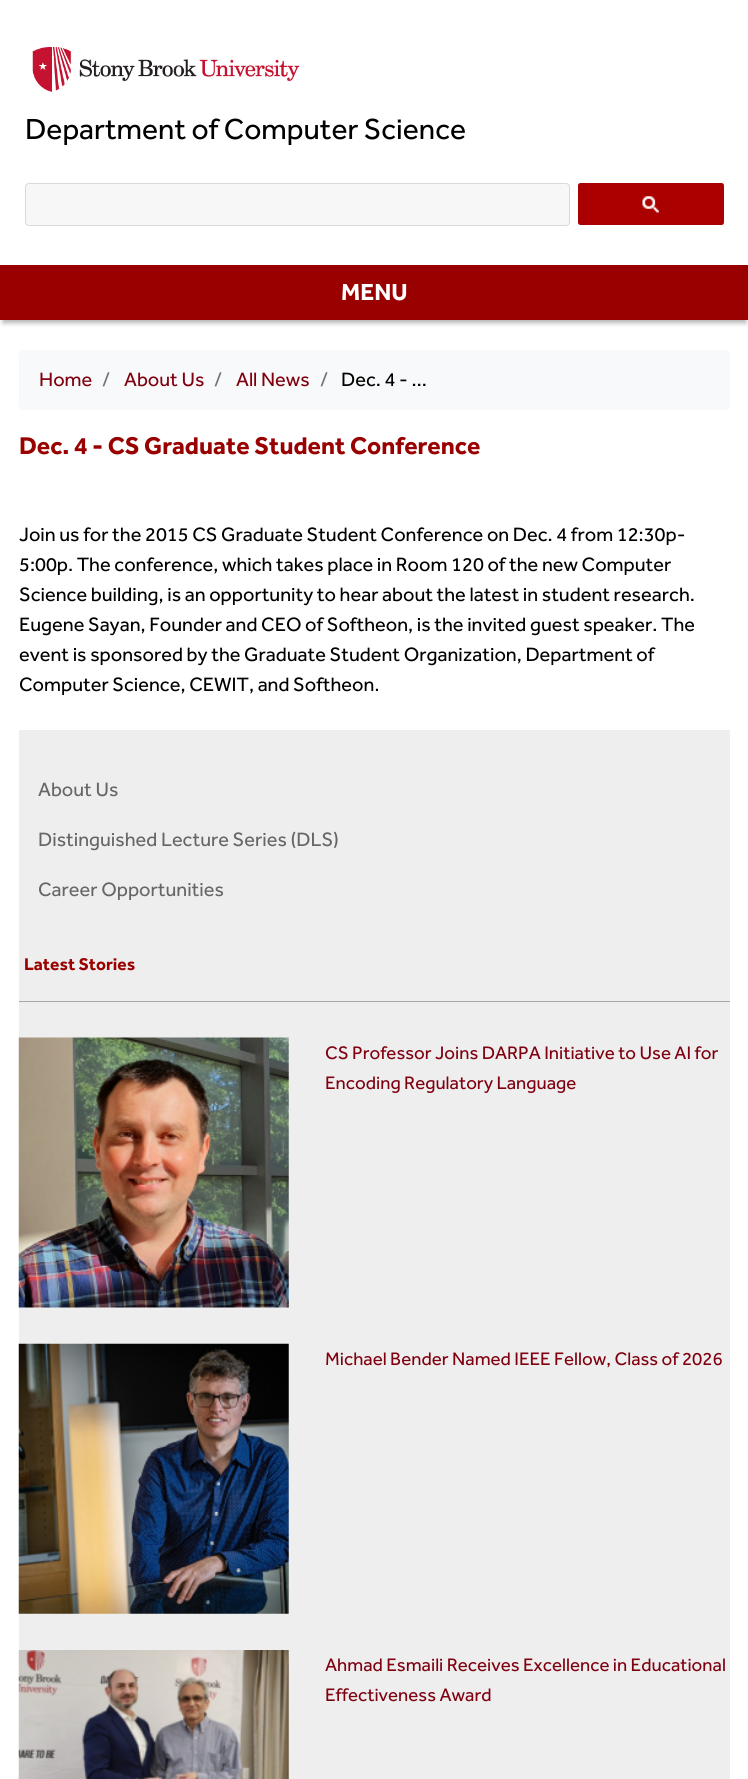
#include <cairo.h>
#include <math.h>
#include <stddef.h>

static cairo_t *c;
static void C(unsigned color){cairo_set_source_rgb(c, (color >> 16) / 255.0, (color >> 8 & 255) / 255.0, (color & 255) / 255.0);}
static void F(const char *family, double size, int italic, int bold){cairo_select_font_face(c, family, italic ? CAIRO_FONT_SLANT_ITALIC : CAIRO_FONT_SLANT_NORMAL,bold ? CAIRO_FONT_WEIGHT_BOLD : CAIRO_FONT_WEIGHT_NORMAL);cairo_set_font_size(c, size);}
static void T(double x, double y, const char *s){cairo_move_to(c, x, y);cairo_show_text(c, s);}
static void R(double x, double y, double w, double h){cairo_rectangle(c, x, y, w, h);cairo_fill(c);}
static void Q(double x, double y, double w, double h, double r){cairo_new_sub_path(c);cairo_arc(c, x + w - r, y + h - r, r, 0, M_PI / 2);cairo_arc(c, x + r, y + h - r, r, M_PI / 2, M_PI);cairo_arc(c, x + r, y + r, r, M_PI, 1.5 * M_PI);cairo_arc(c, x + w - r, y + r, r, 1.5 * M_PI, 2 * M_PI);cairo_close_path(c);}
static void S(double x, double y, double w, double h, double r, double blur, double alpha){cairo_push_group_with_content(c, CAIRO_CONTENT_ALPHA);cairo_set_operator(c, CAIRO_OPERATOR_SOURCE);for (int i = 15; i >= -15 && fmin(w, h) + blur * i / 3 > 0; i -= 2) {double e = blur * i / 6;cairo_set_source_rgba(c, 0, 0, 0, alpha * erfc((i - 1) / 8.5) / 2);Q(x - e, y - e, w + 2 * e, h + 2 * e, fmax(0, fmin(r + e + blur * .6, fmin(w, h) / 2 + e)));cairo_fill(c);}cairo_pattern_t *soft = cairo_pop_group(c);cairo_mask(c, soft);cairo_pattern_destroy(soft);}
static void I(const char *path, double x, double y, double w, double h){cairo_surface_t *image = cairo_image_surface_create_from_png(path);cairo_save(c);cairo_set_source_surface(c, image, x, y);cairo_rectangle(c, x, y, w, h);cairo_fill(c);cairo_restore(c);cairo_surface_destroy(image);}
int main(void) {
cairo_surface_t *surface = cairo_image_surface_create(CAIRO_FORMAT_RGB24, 748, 1779);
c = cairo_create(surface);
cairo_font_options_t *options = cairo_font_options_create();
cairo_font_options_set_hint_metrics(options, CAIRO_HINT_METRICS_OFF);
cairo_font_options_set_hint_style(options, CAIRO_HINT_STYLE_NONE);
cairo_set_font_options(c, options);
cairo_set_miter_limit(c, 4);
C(0xffffff);
cairo_paint(c);
I("1.png",32,46,268,46);
F("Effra",30,0,0);
C(0x000000);
T(25,139,"Department of Computer Science");
C(0xf7f7f7);
Q(25.5,183.5,544,42,3.5);
cairo_fill_preserve(c);
C(0xd9d9d9);
cairo_set_line_width(c,1);
cairo_stroke(c);
C(0xaa0000);
Q(578,183,146,42,2.5);
cairo_fill(c);
I("2.png",642,196,17,17);
C(0x000000);
S(3,273,743,50,0,2.5,.3);
C(0x990000);
R(0,265,748,55);
F("Effra",24,0,1);
C(0xffffff);
T(341,300,"MENU");
C(0xf8f9fa);
Q(19,350,711,60,4);
cairo_fill(c);
F("Effra",20,0,0);
C(0x7f000f);
T(39,386,"Home");
C(0x6c757d);
T(102,386,"/");
C(0x7f000f);
T(124,386,"About Us");
C(0x6c757d);
T(214,386,"/");
C(0x7f000f);
T(236,386,"All News");
C(0x6c757d);
T(320,386,"/");
C(0x000000);
T(341,386,"Dec. 4 - …");
F("Effra",25,0,1);
C(0x990000);
T(19,454,"Dec. 4 - CS Graduate Student Conference");
F("Effra",20,0,0);
C(0x000000);
T(19,541,"Join us for the 2015 CS Graduate Student Conference on Dec. 4 from 12:30p-");
T(19,571,"5:00p. The conference, which takes place in Room 120 of the new Computer");
T(19,601,"Science building, is an opportunity to hear about the latest in student research.");
T(19,631,"Eugene Sayan, Founder and CEO of Softheon, is the invited guest speaker. The");
T(19,661,"event is sponsored by the Graduate Student Organization, Department of");
T(19,691,"Computer Science, CEWIT, and Softheon.");
C(0xeeeeee);
R(19,730,711,1049);
C(0x666666);
T(38,796,"About Us");
T(38,846,"Distinguished Lecture Series (DLS)");
T(38,896,"Career Opportunities");
F("Effra",17.5,0,1);
C(0x990000);
T(24,970,"Latest Stories");
C(0xa8a8a8);
R(19,1001,711,1);
I("3.png",18,1037,271,271);
F("Effra",18.75,0,0);
C(0x7f000f);
T(325,1059,"CS Professor Joins DARPA Initiative to Use AI for");
T(325,1089,"Encoding Regulatory Language");
I("4.png",18,1343,271,271);
T(325,1365,"Michael Bender Named IEEE Fellow, Class of 2026");
I("5.png",18,1650,271,129);
T(325,1671,"Ahmad Esmaili Receives Excellence in Educational");
T(325,1701,"Effectiveness Award");
cairo_surface_write_to_png(surface, "o.png");
cairo_font_options_destroy(options);
cairo_destroy(c);
cairo_surface_destroy(surface);
return 0;
}
